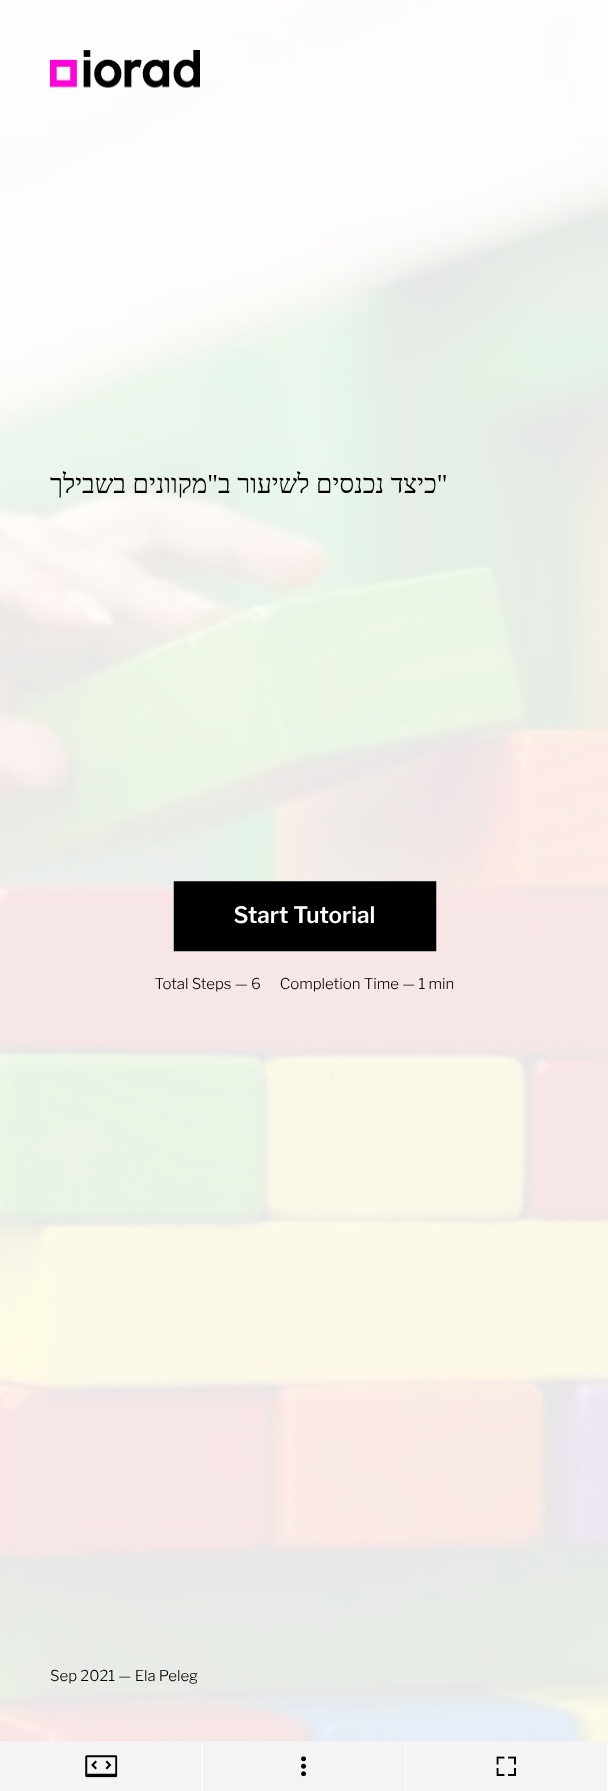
#include <cairo.h>
#include <math.h>
#include <stddef.h>

static cairo_t *c;
static void C(unsigned color){cairo_set_source_rgb(c, (color >> 16) / 255.0, (color >> 8 & 255) / 255.0, (color & 255) / 255.0);}
static void I(const char *path, double x, double y, double w, double h){cairo_surface_t *image = cairo_image_surface_create_from_png(path);cairo_save(c);cairo_set_source_surface(c, image, x, y);cairo_rectangle(c, x, y, w, h);cairo_fill(c);cairo_restore(c);cairo_surface_destroy(image);}
int main(void) {
cairo_surface_t *surface = cairo_image_surface_create(CAIRO_FORMAT_RGB24, 608, 1791);
c = cairo_create(surface);
cairo_font_options_t *options = cairo_font_options_create();
cairo_font_options_set_hint_metrics(options, CAIRO_HINT_METRICS_OFF);
cairo_font_options_set_hint_style(options, CAIRO_HINT_STYLE_NONE);
cairo_set_font_options(c, options);
cairo_set_miter_limit(c, 4);
C(0xffffff);
cairo_paint(c);
I("1.png",0,0,608,1791);
cairo_surface_write_to_png(surface, "o.png");
cairo_font_options_destroy(options);
cairo_destroy(c);
cairo_surface_destroy(surface);
return 0;
}
